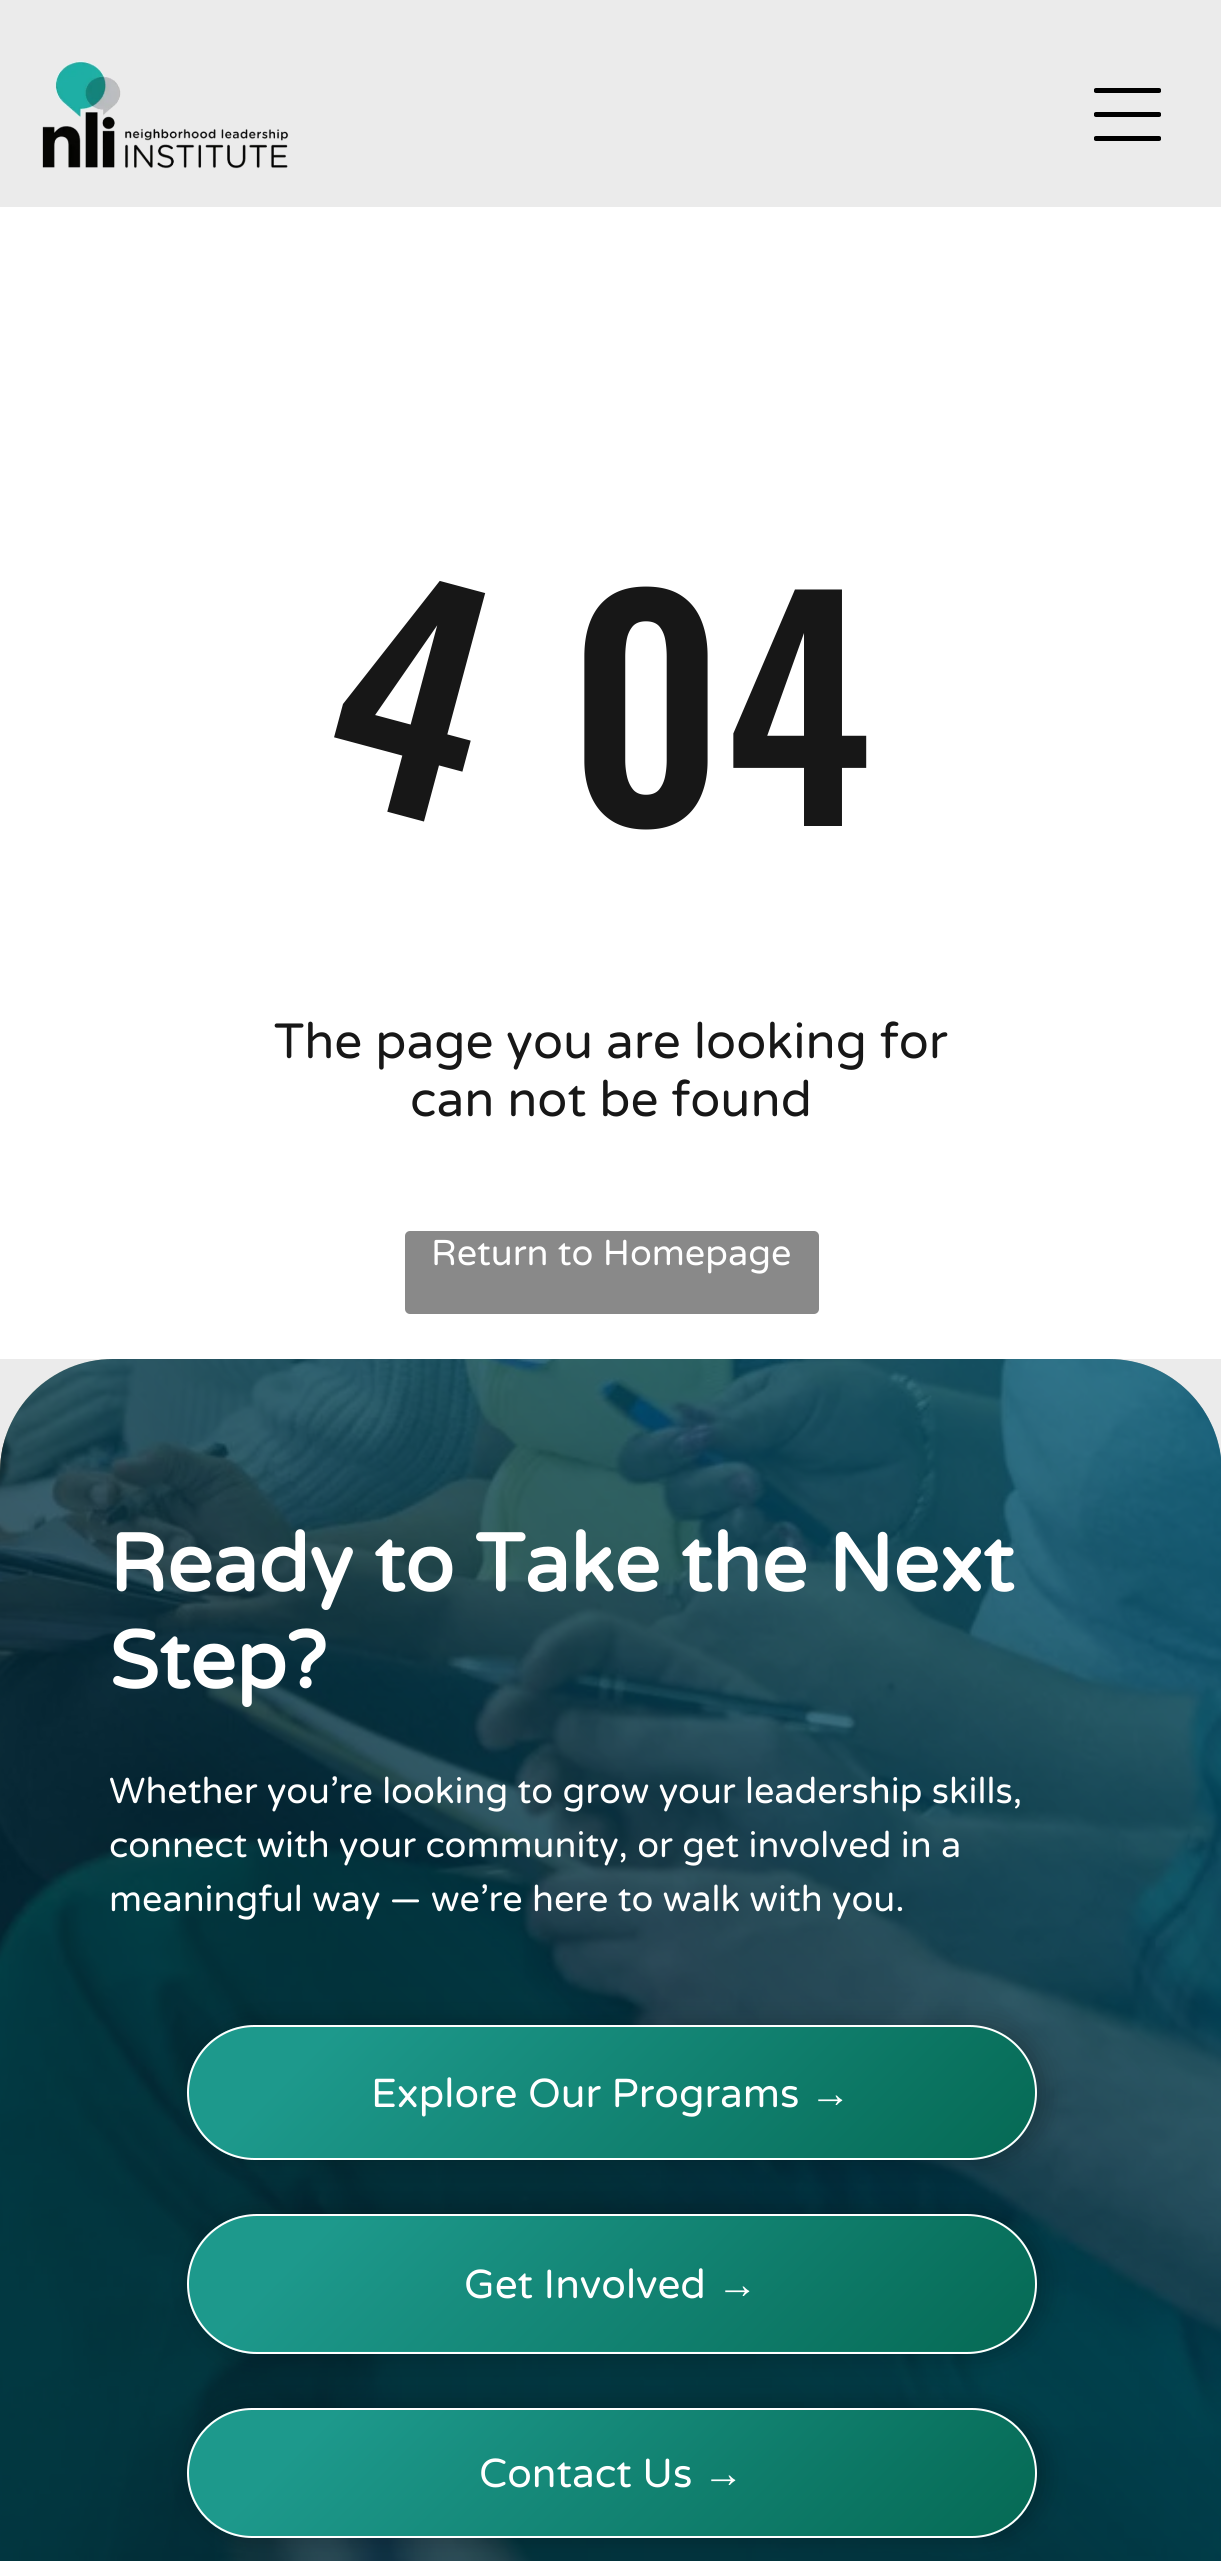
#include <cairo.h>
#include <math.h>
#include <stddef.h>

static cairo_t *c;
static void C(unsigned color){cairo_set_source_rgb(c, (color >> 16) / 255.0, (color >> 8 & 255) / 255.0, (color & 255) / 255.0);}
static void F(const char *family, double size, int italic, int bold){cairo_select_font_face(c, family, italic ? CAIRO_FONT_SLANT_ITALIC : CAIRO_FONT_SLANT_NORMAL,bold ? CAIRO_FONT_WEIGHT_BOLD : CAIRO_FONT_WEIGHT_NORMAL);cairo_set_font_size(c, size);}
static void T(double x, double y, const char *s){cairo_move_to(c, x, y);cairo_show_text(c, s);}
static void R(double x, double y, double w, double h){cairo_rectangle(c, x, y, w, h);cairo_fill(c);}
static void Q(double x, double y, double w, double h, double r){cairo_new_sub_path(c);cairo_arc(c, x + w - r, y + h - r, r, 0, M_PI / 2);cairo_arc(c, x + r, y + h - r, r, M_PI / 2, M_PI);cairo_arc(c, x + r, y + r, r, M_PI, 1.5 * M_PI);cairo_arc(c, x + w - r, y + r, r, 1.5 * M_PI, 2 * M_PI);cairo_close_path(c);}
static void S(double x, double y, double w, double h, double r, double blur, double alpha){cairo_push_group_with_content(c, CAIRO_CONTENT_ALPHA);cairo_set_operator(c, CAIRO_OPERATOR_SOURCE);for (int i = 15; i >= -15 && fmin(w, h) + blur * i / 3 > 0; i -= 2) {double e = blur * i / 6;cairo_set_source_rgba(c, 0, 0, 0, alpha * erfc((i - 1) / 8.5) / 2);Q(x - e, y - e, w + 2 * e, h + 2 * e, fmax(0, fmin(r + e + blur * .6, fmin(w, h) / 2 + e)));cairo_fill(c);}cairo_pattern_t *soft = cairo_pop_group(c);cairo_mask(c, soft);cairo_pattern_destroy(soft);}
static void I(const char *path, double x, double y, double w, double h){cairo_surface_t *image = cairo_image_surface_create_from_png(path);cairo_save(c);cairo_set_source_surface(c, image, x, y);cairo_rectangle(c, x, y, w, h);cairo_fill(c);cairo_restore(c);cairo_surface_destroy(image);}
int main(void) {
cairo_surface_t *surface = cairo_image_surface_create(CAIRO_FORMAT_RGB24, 1221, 2561);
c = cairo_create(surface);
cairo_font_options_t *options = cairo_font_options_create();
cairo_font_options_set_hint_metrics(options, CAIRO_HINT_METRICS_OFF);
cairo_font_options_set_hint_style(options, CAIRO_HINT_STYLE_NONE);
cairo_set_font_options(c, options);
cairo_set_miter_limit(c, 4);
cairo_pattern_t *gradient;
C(0xebebeb);
cairo_paint(c);
I("1.png",42,61,247,108);
cairo_save(c);
cairo_rectangle(c,1094,81,67,68);
cairo_clip(c);
C(0x000000);
cairo_new_path(c);
cairo_move_to(c,1096,88);
cairo_curve_to(c,1093,88,1093,93,1096,93);
cairo_line_to(c,1159,93);
cairo_curve_to(c,1162,93,1162,88,1159,88);
cairo_close_path(c);
cairo_move_to(c,1096,112);
cairo_curve_to(c,1093,112,1093,117,1096,117);
cairo_line_to(c,1159,117);
cairo_curve_to(c,1162,117,1162,112,1159,112);
cairo_close_path(c);
cairo_move_to(c,1096,136);
cairo_curve_to(c,1093,136,1093,141,1096,141);
cairo_line_to(c,1159,141);
cairo_curve_to(c,1162,141,1162,136,1159,136);
cairo_close_path(c);
cairo_fill(c);
cairo_restore(c);
C(0xffffff);
R(0,207,1221,1152);
F("Oswald Medium",292,0,0);
C(0x171717);
cairo_save(c);
cairo_translate(c,310,791);
cairo_rotate(c,15 * M_PI / 180);
T(0,0,"4");
cairo_restore(c);
T(568,826,"04");
F("Varela Round",49.5,0,0);
T(274,1058,"The page you are looking for");
T(410,1116,"can not be found");
C(0x898989);
Q(405,1231,414,83,5);
cairo_fill(c);
F("Varela Round",36,0,0);
C(0xffffff);
T(431,1265,"Return to Homepage");
I("2.png",0,1359,1221,1202);
gradient = cairo_pattern_create_linear(-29,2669,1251,1388);
cairo_pattern_add_color_stop_rgba(gradient,.42,0.008,0.169,0.235,.78);
cairo_pattern_add_color_stop_rgba(gradient,1,0.004,0.373,0.498,.78);
cairo_set_source(c,gradient);
cairo_pattern_destroy(gradient);
cairo_new_path(c);
cairo_move_to(c,113,1359);
cairo_line_to(c,1109,1359);
cairo_curve_to(c,1171.5,1359,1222,1409.5,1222,1472);
cairo_line_to(c,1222,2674);
cairo_line_to(c,0,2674);
cairo_line_to(c,0,1472);
cairo_curve_to(c,0,1409.5,50.5,1359,113,1359);
cairo_close_path(c);
cairo_fill(c);
F("Varela Round",81,0,1);
C(0xffffff);
T(109,1591,"Ready to Take the Next");
T(109,1688,"Step?");
F("Varela Round",36,0,0);
T(109,1803,"Whether you’re looking to grow your leadership skills,");
T(109,1857,"connect with your community, or get involved in a");
T(109,1911,"meaningful way — we’re here to walk with you.");
C(0x000000);
S(194,2025,850,135,67.5,12.5,.25);
cairo_save(c);
Q(187,2025,850,135,67.5);
cairo_clip(c);
gradient = cairo_pattern_create_linear(368,1848,856,2337);
cairo_pattern_add_color_stop_rgba(gradient,.15,0.114,0.6,0.549,1);
cairo_pattern_add_color_stop_rgba(gradient,1,0.02,0.412,0.329,1);
cairo_set_source(c,gradient);
cairo_pattern_destroy(gradient);
R(189,2027,846,131);
cairo_restore(c);
Q(188,2026,848,133,66.5);
C(0xffffff);
cairo_stroke(c);
F("Varela Round",40.5,0,0);
T(371,2107,"Explore Our Programs");
F("Liberation Serif",40.5,0,0);
T(810,2107,"→");
C(0x000000);
S(194,2214,850,140,70,12.5,.25);
cairo_save(c);
Q(187,2214,850,140,70);
cairo_clip(c);
gradient = cairo_pattern_create_linear(367,2039,857,2529);
cairo_pattern_add_color_stop_rgba(gradient,.15,0.114,0.6,0.549,1);
cairo_pattern_add_color_stop_rgba(gradient,1,0.02,0.412,0.329,1);
cairo_set_source(c,gradient);
cairo_pattern_destroy(gradient);
R(189,2216,846,135);
gradient = cairo_pattern_create_linear(367,2174,857,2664);
cairo_pattern_add_color_stop_rgba(gradient,.15,0.114,0.6,0.549,1);
cairo_pattern_add_color_stop_rgba(gradient,1,0.02,0.412,0.329,1);
cairo_set_source(c,gradient);
cairo_pattern_destroy(gradient);
R(237,2351,750,3);
cairo_restore(c);
Q(188,2215,848,138,69);
C(0xffffff);
cairo_stroke(c);
F("Varela Round",40.5,0,0);
T(464,2298,"Get Involved");
F("Liberation Serif",40.5,0,0);
T(717,2298,"→");
C(0x000000);
S(194,2408,850,130,65,12.5,.25);
cairo_save(c);
Q(187,2408,850,130,65);
cairo_clip(c);
gradient = cairo_pattern_create_linear(369,2230,855,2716);
cairo_pattern_add_color_stop_rgba(gradient,.15,0.114,0.6,0.549,1);
cairo_pattern_add_color_stop_rgba(gradient,1,0.02,0.412,0.329,1);
cairo_set_source(c,gradient);
cairo_pattern_destroy(gradient);
R(189,2410,846,126);
cairo_restore(c);
Q(188,2409,848,128,64);
C(0xffffff);
cairo_stroke(c);
F("Varela Round",40.5,0,0);
T(479,2487,"Contact Us");
F("Liberation Serif",40.5,0,0);
T(703,2487,"→");
cairo_surface_write_to_png(surface, "o.png");
cairo_font_options_destroy(options);
cairo_destroy(c);
cairo_surface_destroy(surface);
return 0;
}
